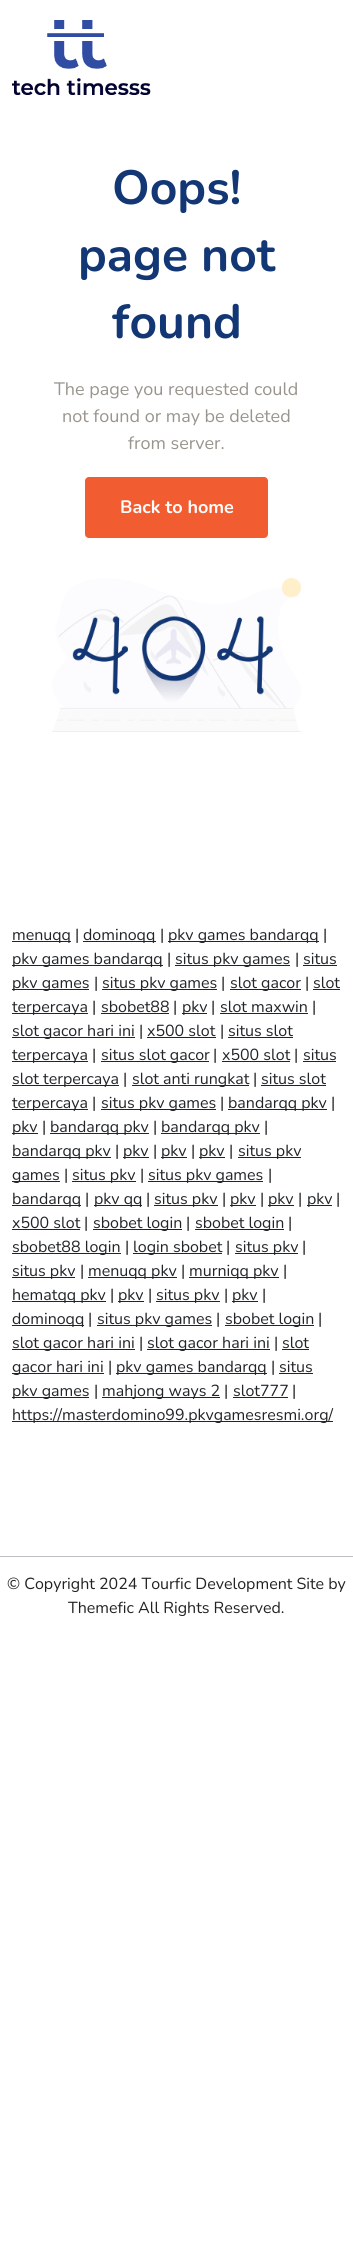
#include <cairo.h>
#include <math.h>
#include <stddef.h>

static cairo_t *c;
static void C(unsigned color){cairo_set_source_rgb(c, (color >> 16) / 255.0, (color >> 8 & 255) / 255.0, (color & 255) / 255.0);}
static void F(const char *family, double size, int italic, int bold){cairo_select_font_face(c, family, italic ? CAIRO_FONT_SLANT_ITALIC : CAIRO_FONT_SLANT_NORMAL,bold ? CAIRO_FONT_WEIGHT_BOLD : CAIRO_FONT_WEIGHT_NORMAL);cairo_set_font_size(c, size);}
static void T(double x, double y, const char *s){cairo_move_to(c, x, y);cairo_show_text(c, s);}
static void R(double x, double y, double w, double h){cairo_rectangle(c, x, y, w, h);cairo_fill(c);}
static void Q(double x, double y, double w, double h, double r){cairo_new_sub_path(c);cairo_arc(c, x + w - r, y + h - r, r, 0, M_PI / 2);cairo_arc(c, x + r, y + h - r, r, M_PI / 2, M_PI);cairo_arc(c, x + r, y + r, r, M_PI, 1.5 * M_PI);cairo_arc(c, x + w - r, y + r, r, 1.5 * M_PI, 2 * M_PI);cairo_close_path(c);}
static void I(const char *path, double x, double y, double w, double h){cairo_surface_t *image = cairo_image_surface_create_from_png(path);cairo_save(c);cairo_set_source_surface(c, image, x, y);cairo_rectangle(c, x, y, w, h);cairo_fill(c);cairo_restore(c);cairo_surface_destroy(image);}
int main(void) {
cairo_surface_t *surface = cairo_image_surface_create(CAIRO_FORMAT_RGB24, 353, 2266);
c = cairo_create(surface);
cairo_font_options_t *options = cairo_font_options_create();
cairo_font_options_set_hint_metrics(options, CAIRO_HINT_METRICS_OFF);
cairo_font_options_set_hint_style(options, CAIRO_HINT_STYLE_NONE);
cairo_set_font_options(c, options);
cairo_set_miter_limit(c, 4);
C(0xffffff);
cairo_paint(c);
I("1.png",12,20,139,75);
F("Nunito",48,0,1);
C(0x133774);
T(112,204,"Oops!");
T(78,271,"page not");
T(112,338,"found");
F("Nunito",18,0,0);
C(0x99948d);
T(54,395,"The page you requested could");
T(62,422,"not found or may be deleted");
T(128,449,"from server.");
C(0xf15d30);
Q(85,477,183,61,4);
cairo_fill(c);
F("Nunito",18,0,1);
C(0xffffff);
T(120,513,"Back to home");
I("2.png",52,578,249,154);
C(0x212529);
R(12,941,59,1);
F("Nunito",16,0,0);
T(12,940,"menuqq");
C(0x222222);
T(75,940,"|");
C(0x212529);
R(83,941,73,1);
T(83,940,"dominoqq");
C(0x222222);
T(160,940,"|");
C(0x212529);
R(168,941,151,1);
T(168,940,"pkv games bandarqq");
C(0x222222);
T(323,940,"|");
C(0x212529);
R(12,965,151,1);
T(12,964,"pkv games bandarqq");
C(0x222222);
T(167,964,"|");
C(0x212529);
R(175,965,115,1);
T(175,964,"situs pkv games");
C(0x222222);
T(295,964,"|");
C(0x212529);
T(303,964,"situs");
R(303,965,34,1);
R(12,989,77,1);
T(12,988,"pkv games");
C(0x222222);
T(94,988,"|");
C(0x212529);
R(102,989,115,1);
T(102,988,"situs pkv games");
C(0x222222);
T(221,988,"|");
C(0x212529);
R(230,989,71,1);
T(230,988,"slot gacor");
C(0x222222);
T(305,988,"|");
C(0x212529);
T(313,988,"slot");
R(313,989,27,1);
R(12,1013,76,1);
T(12,1012,"terpercaya");
C(0x222222);
T(92,1012,"|");
C(0x212529);
T(101,1012,"sbobet88");
R(101,1013,68,1);
C(0x222222);
T(173,1012,"|");
C(0x212529);
R(182,1013,25,1);
T(182,1012,"pkv");
C(0x222222);
T(211,1012,"|");
C(0x212529);
T(220,1012,"slot maxwin");
R(220,1013,88,1);
C(0x222222);
T(312,1012,"|");
C(0x212529);
R(12,1037,123,1);
T(12,1036,"slot gacor hari ini");
C(0x222222);
T(139,1036,"|");
C(0x212529);
T(147,1036,"x500 slot");
R(147,1037,69,1);
C(0x222222);
T(220,1036,"|");
C(0x212529);
T(228,1036,"situs slot");
R(228,1037,65,1);
R(12,1061,76,1);
T(12,1060,"terpercaya");
C(0x222222);
T(92,1060,"|");
C(0x212529);
R(101,1061,108,1);
T(101,1060,"situs slot gacor");
C(0x222222);
T(213,1060,"|");
C(0x212529);
T(222,1060,"x500 slot");
R(222,1061,68,1);
C(0x222222);
T(294,1060,"|");
C(0x212529);
T(303,1060,"situs");
R(303,1061,33,1);
R(12,1085,107,1);
T(12,1084,"slot terpercaya");
C(0x222222);
T(123,1084,"|");
C(0x212529);
R(132,1085,117,1);
T(132,1084,"slot anti rungkat");
C(0x222222);
T(253,1084,"|");
C(0x212529);
T(261,1084,"situs slot");
R(261,1085,65,1);
R(12,1109,76,1);
T(12,1108,"terpercaya");
C(0x222222);
T(92,1108,"|");
C(0x212529);
R(101,1109,115,1);
T(101,1108,"situs pkv games");
C(0x222222);
T(220,1108,"|");
C(0x212529);
R(228,1109,99,1);
T(228,1108,"bandarqq pkv");
C(0x222222);
T(331,1108,"|");
C(0x212529);
R(12,1133,26,1);
T(12,1132,"pkv");
C(0x222222);
T(42,1132,"|");
C(0x212529);
R(50,1133,99,1);
T(50,1132,"bandarqq pkv");
C(0x222222);
T(153,1132,"|");
C(0x212529);
R(161,1133,99,1);
T(161,1132,"bandarqq pkv");
C(0x222222);
T(264,1132,"|");
C(0x212529);
R(12,1157,99,1);
T(12,1156,"bandarqq pkv");
C(0x222222);
T(115,1156,"|");
C(0x212529);
R(123,1157,26,1);
T(123,1156,"pkv");
C(0x222222);
T(153,1156,"|");
C(0x212529);
R(161,1157,26,1);
T(161,1156,"pkv");
C(0x222222);
T(191,1156,"|");
C(0x212529);
R(199,1157,26,1);
T(199,1156,"pkv");
C(0x222222);
T(229,1156,"|");
C(0x212529);
R(238,1157,63,1);
T(238,1156,"situs pkv");
R(12,1181,48,1);
T(12,1180,"games");
C(0x222222);
T(64,1180,"|");
C(0x212529);
R(72,1181,64,1);
T(72,1180,"situs pkv");
C(0x222222);
T(140,1180,"|");
C(0x212529);
R(148,1181,115,1);
T(148,1180,"situs pkv games");
C(0x222222);
T(268,1180,"|");
C(0x212529);
R(12,1205,69,1);
T(12,1204,"bandarqq");
C(0x222222);
T(85,1204,"|");
C(0x212529);
R(94,1205,48,1);
T(94,1204,"pkv qq");
C(0x222222);
T(146,1204,"|");
C(0x212529);
R(154,1205,64,1);
T(154,1204,"situs pkv");
C(0x222222);
T(222,1204,"|");
C(0x212529);
R(230,1205,26,1);
T(230,1204,"pkv");
C(0x222222);
T(260,1204,"|");
C(0x212529);
R(268,1205,26,1);
T(268,1204,"pkv");
C(0x222222);
T(298,1204,"|");
C(0x212529);
R(307,1205,25,1);
T(307,1204,"pkv");
C(0x222222);
T(336,1204,"|");
C(0x212529);
T(12,1228,"x500 slot");
R(12,1229,68,1);
C(0x222222);
T(84,1228,"|");
C(0x212529);
R(93,1229,89,1);
T(93,1228,"sbobet login");
C(0x222222);
T(186,1228,"|");
C(0x212529);
R(195,1229,89,1);
T(195,1228,"sbobet login");
C(0x222222);
T(288,1228,"|");
C(0x212529);
R(12,1253,109,1);
T(12,1252,"sbobet88 login");
C(0x222222);
T(125,1252,"|");
C(0x212529);
R(133,1253,89,1);
T(133,1252,"login sbobet");
C(0x222222);
T(226,1252,"|");
C(0x212529);
R(235,1253,63,1);
T(235,1252,"situs pkv");
C(0x222222);
T(302,1252,"|");
C(0x212529);
R(12,1277,63,1);
T(12,1276,"situs pkv");
C(0x222222);
T(80,1276,"|");
C(0x212529);
R(88,1277,89,1);
T(88,1276,"menuqq pkv");
C(0x222222);
T(181,1276,"|");
C(0x212529);
R(189,1277,90,1);
T(189,1276,"murniqq pkv");
C(0x222222);
T(283,1276,"|");
C(0x212529);
R(12,1301,94,1);
T(12,1300,"hematqq pkv");
C(0x222222);
T(110,1300,"|");
C(0x212529);
R(118,1301,26,1);
T(118,1300,"pkv");
C(0x222222);
T(148,1300,"|");
C(0x212529);
R(156,1301,64,1);
T(156,1300,"situs pkv");
C(0x222222);
T(224,1300,"|");
C(0x212529);
R(232,1301,26,1);
T(232,1300,"pkv");
C(0x222222);
T(262,1300,"|");
C(0x212529);
R(12,1325,72,1);
T(12,1324,"dominoqq");
C(0x222222);
T(88,1324,"|");
C(0x212529);
R(97,1325,115,1);
T(97,1324,"situs pkv games");
C(0x222222);
T(216,1324,"|");
C(0x212529);
R(225,1325,89,1);
T(225,1324,"sbobet login");
C(0x222222);
T(318,1324,"|");
C(0x212529);
R(12,1349,123,1);
T(12,1348,"slot gacor hari ini");
C(0x222222);
T(139,1348,"|");
C(0x212529);
R(147,1349,123,1);
T(147,1348,"slot gacor hari ini");
C(0x222222);
T(274,1348,"|");
C(0x212529);
T(282,1348,"slot");
R(282,1349,27,1);
R(12,1373,92,1);
T(12,1372,"gacor hari ini");
C(0x222222);
T(108,1372,"|");
C(0x212529);
R(116,1373,151,1);
T(116,1372,"pkv games bandarqq");
C(0x222222);
T(271,1372,"|");
C(0x212529);
T(279,1372,"situs");
R(279,1373,34,1);
R(12,1397,77,1);
T(12,1396,"pkv games");
C(0x222222);
T(94,1396,"|");
C(0x212529);
R(102,1397,118,1);
T(102,1396,"mahjong ways 2");
C(0x222222);
T(224,1396,"|");
C(0x212529);
T(233,1396,"slot777");
R(233,1397,55,1);
C(0x222222);
T(292,1396,"|");
C(0x212529);
R(12,1421,321,1);
T(12,1420,"https://masterdomino99.pkvgamesresmi.org/");
C(0xbbbfc4);
R(0,1556,353,1);
C(0x222222);
T(7,1589,"© Copyright 2024 Tourfic Development Site by");
T(68,1613,"Themefic All Rights Reserved.");
cairo_surface_write_to_png(surface, "o.png");
cairo_font_options_destroy(options);
cairo_destroy(c);
cairo_surface_destroy(surface);
return 0;
}
